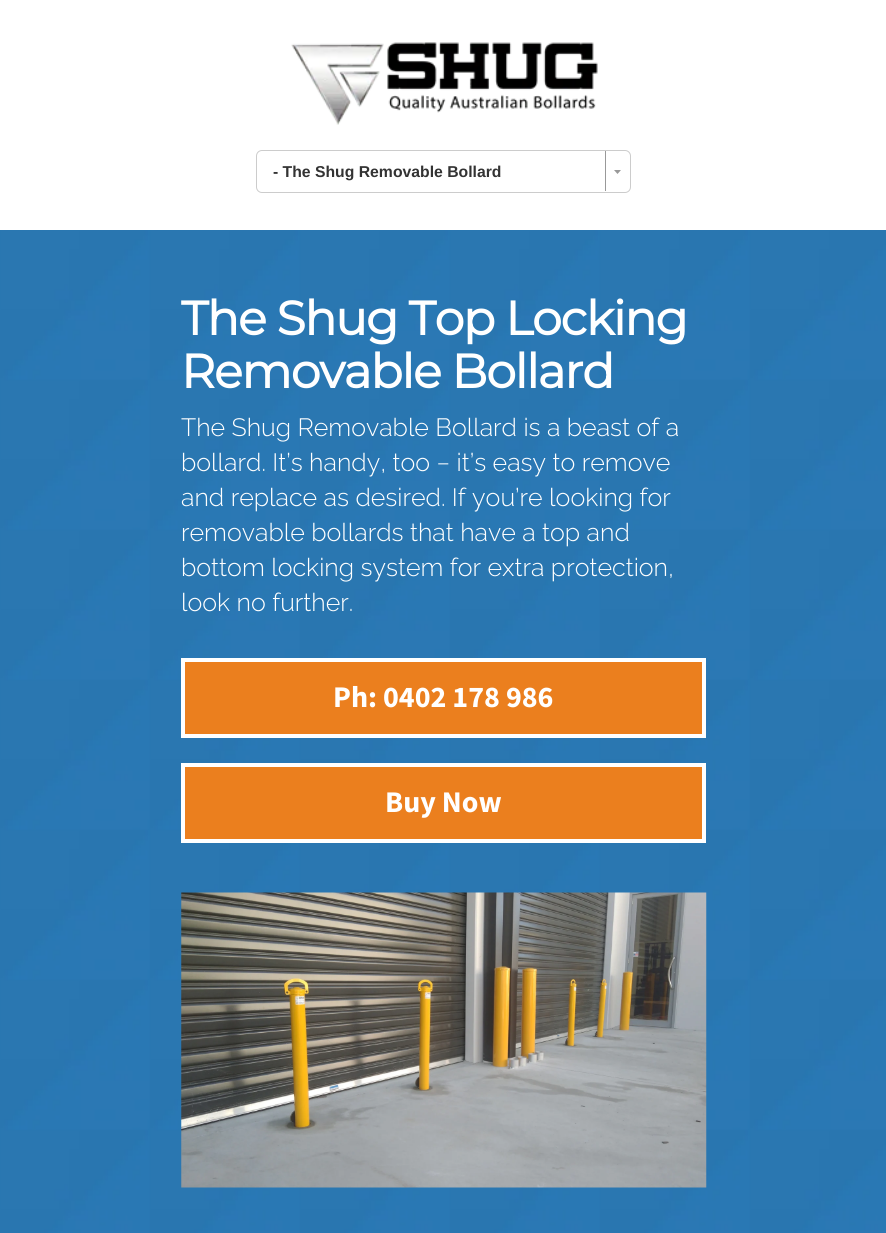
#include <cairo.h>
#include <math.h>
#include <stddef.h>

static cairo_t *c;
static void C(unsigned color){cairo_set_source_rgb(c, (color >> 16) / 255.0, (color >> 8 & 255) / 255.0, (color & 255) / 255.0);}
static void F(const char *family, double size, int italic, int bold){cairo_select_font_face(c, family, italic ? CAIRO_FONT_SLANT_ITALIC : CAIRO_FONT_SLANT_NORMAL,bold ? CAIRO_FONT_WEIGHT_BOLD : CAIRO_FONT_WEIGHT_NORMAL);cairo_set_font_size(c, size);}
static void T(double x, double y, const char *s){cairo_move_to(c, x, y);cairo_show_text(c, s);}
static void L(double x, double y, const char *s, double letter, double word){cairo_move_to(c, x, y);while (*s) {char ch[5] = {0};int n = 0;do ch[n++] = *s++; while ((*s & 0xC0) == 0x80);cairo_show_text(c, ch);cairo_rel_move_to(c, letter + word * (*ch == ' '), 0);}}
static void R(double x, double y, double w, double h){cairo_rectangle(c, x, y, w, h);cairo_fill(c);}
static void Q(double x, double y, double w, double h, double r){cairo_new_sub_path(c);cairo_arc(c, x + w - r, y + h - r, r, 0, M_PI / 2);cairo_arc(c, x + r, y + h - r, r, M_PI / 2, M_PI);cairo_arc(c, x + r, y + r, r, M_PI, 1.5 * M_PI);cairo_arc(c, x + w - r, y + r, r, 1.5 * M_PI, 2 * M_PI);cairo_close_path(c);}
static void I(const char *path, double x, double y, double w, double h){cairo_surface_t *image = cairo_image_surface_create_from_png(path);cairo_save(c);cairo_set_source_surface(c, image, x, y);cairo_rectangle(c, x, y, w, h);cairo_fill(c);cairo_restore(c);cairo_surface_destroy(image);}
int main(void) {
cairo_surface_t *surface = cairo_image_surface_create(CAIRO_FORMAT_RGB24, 886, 1233);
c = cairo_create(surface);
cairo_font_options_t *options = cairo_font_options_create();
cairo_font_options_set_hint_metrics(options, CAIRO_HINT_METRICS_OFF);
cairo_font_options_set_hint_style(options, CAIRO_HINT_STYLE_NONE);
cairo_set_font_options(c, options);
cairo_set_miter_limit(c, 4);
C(0xffffff);
cairo_paint(c);
I("1.png",291,42,307,83);
Q(256.5,150.5,374,42,5.5);
C(0xcccccc);
cairo_set_line_width(c,1);
cairo_stroke(c);
F("Liberation Sans",15.75,0,1);
C(0x333333);
T(273,177,"- The Shug Removable Bollard");
C(0x999999);
R(605,151,1,40);
cairo_new_path(c);
cairo_move_to(c,614,170);
cairo_line_to(c,621,170);
cairo_line_to(c,617.5,174);
cairo_close_path(c);
cairo_fill(c);
I("2.png",0,230,886,1003);
F("Montserrat",47.5,0,1);
C(0xffffff);
L(181,335,"The Shug Top Locking",-1.25,0);
L(181,388,"Removable Bollard",-1.25,0);
F("Raleway Light",25,0,0);
T(181,436,"The Shug Removable Bollard is a beast of a");
T(181,471,"bollard. It’s handy, too − it’s easy to remove");
T(181,506,"and replace as desired. If you’re looking for");
T(181,541,"removable bollards that have a top and");
T(181,576,"bottom locking system for extra protection,");
T(181,611,"look no further.");
C(0xeb7f1e);
cairo_rectangle(c,183,660,521,76);
cairo_fill_preserve(c);
C(0xffffff);
cairo_set_line_width(c,4);
cairo_stroke(c);
F("Source Sans Pro",30,0,1);
T(333,707,"Ph: 0402 178 986");
C(0xeb7f1e);
cairo_rectangle(c,183,765,521,76);
cairo_fill_preserve(c);
C(0xffffff);
cairo_stroke(c);
T(385,812,"Buy Now");
I("3.png",181,892,526,296);
cairo_surface_write_to_png(surface, "o.png");
cairo_font_options_destroy(options);
cairo_destroy(c);
cairo_surface_destroy(surface);
return 0;
}
